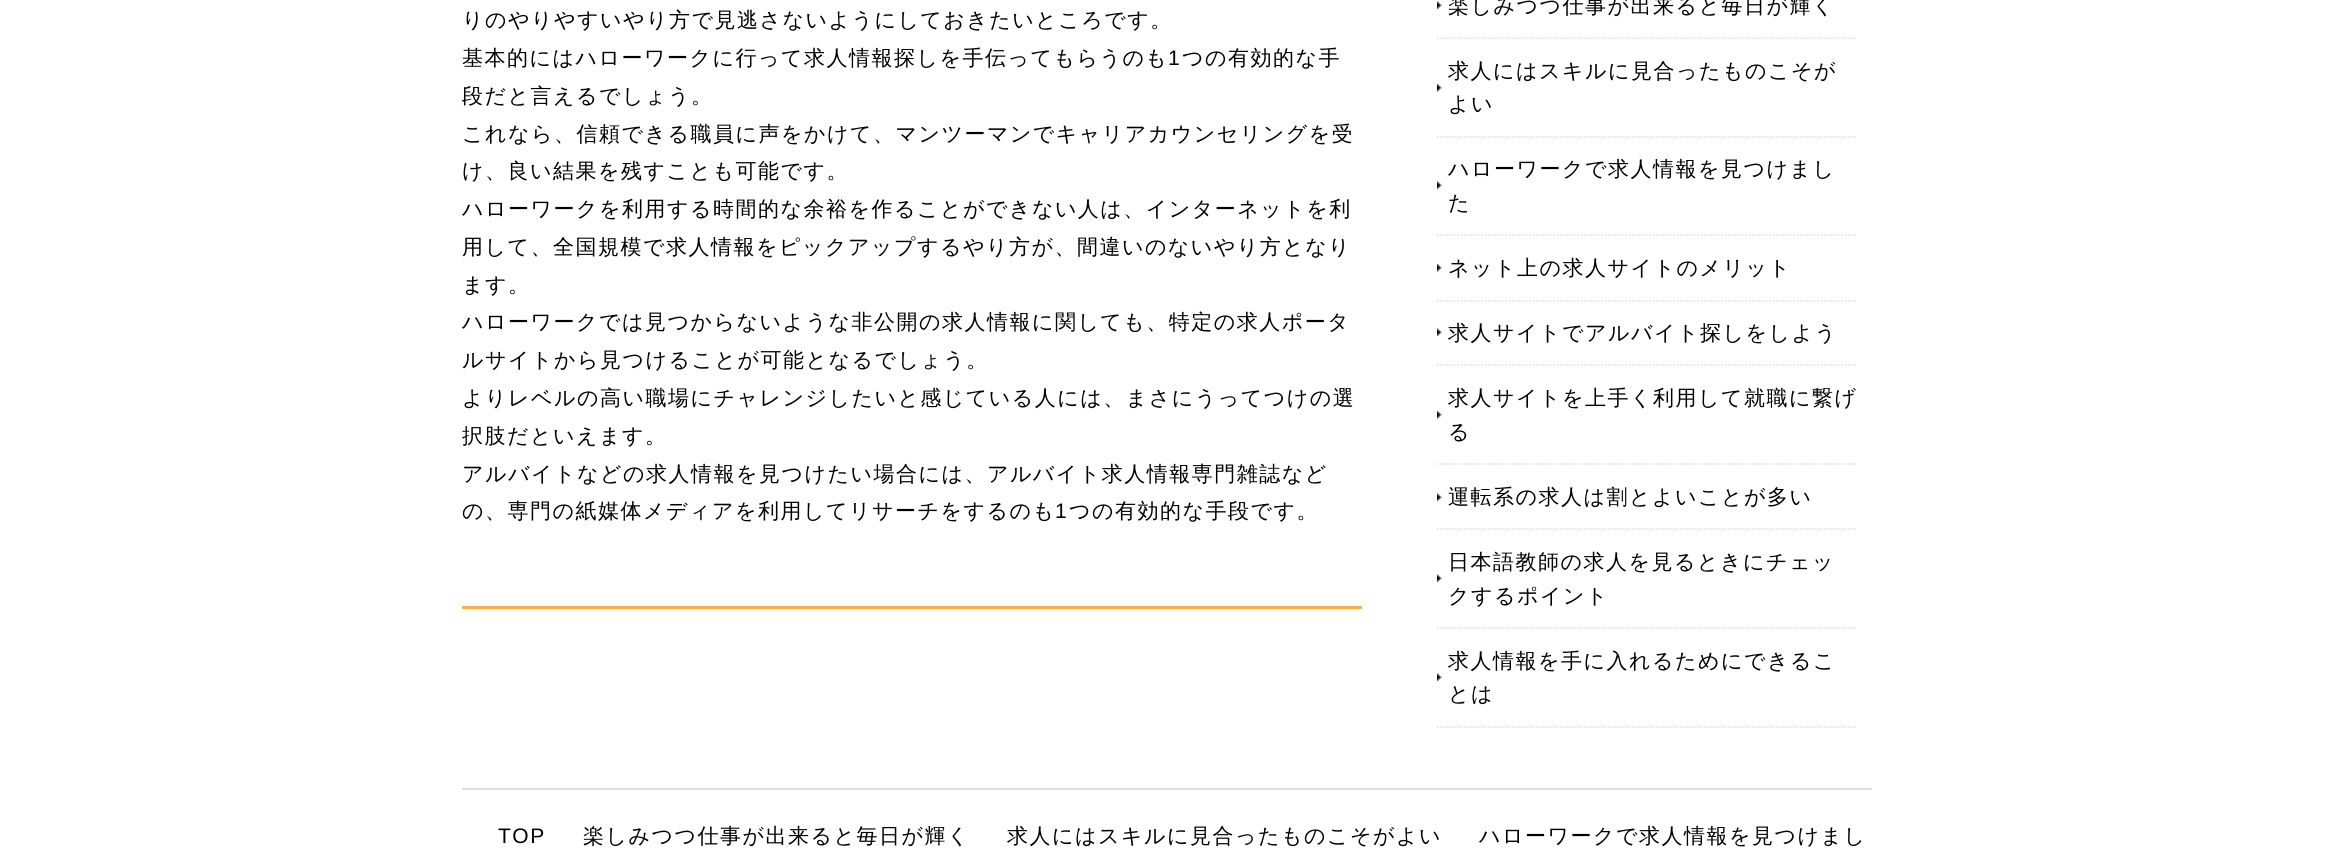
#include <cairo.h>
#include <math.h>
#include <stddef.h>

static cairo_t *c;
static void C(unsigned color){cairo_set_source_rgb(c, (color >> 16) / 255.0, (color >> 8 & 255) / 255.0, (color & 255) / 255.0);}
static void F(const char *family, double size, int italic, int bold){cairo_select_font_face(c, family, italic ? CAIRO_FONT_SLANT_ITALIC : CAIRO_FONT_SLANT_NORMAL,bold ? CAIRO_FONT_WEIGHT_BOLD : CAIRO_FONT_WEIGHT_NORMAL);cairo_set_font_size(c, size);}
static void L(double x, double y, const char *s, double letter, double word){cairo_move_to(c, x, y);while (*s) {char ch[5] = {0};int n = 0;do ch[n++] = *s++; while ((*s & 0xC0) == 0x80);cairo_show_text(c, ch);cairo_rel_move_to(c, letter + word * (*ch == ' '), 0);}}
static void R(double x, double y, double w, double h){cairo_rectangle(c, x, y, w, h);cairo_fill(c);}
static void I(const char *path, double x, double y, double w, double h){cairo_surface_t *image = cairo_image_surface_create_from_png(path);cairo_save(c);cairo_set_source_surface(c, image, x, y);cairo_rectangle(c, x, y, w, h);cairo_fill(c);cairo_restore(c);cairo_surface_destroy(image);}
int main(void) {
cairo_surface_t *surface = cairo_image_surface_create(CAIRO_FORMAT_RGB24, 2334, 856);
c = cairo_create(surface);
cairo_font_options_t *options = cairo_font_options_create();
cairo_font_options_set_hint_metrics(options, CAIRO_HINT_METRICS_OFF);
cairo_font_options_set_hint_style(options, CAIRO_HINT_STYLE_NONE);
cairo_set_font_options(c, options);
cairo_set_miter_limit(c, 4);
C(0xffffff);
cairo_paint(c);
F("WenQuanYi Zen Hei Medium",21,0,0);
C(0x000000);
L(462,27,"りのやりやすいやり方で見逃さないようにしておきたいところです。",1.5,0);
L(462,65,"基本的にはハローワークに行って求人情報探しを手伝ってもらうのも",1.5,0);
F("Liberation Sans",21,0,0);
L(1168,65,"1",1.5,0);
F("WenQuanYi Zen Hei Medium",21,0,0);
L(1182,65,"つの有効的な手",1.5,0);
L(462,103,"段だと言えるでしょう。",1.5,0);
L(462,141,"これなら、信頼できる職員に声をかけて、マンツーマンでキャリアカウンセリングを受",1.5,0);
L(462,178,"け、良い結果を残すことも可能です。",1.5,0);
L(462,216,"ハローワークを利用する時間的な余裕を作ることができない人は、インターネットを利",1.5,0);
L(462,254,"用して、全国規模で求人情報をピックアップするやり方が、間違いのないやり方となり",1.5,0);
L(462,292,"ます。",1.5,0);
L(462,329,"ハローワークでは見つからないような非公開の求人情報に関しても、特定の求人ポータ",1.5,0);
L(462,367,"ルサイトから見つけることが可能となるでしょう。",1.5,0);
L(462,405,"よりレベルの高い職場にチャレンジしたいと感じている人には、まさにうってつけの選",1.5,0);
L(462,443,"択肢だといえます。",1.5,0);
L(462,481,"アルバイトなどの求人情報を見つけたい場合には、アルバイト求人情報専門雑誌など",1.5,0);
L(462,518,"の、専門の紙媒体メディアを利用してリサーチをするのも",1.5,0);
F("Liberation Sans",21,0,0);
L(1055,518,"1",1.5,0);
F("WenQuanYi Zen Hei Medium",21,0,0);
L(1069,518,"つの有効的な手段です。",1.5,0);
C(0xfcac4c);
R(462,606,900,3);
I("1.png",1437,1,5,8);
cairo_new_path(c);
cairo_move_to(c,1437,38);
cairo_line_to(c,1857,38);
C(0xdddddd);
cairo_set_line_width(c,1.5);
cairo_set_dash(c,(double[]){1.5,1.5},2,0);
cairo_stroke(c);
C(0x000000);
L(1448,13,"楽しみつつ仕事が出来ると毎日が輝く",1.5,0);
I("2.png",1437,84,5,8);
cairo_new_path(c);
cairo_move_to(c,1437,137);
cairo_line_to(c,1857,137);
C(0xdddddd);
cairo_stroke(c);
C(0x000000);
L(1448,78,"求人にはスキルに見合ったものこそが",1.5,0);
L(1448,111,"よい",1.5,0);
I("1.png",1437,181,5,8);
cairo_new_path(c);
cairo_move_to(c,1437,235);
cairo_line_to(c,1857,235);
C(0xdddddd);
cairo_stroke(c);
C(0x000000);
L(1448,176,"ハローワークで求人情報を見つけまし",1.5,0);
L(1448,210,"た",1.5,0);
I("2.png",1437,264,5,8);
cairo_new_path(c);
cairo_move_to(c,1437,301);
cairo_line_to(c,1857,301);
C(0xdddddd);
cairo_stroke(c);
C(0x000000);
L(1448,275,"ネット上の求人サイトのメリット",1.5,0);
I("1.png",1437,328,5,8);
cairo_new_path(c);
cairo_move_to(c,1437,365);
cairo_line_to(c,1857,365);
C(0xdddddd);
cairo_stroke(c);
C(0x000000);
L(1448,340,"求人サイトでアルバイト探しをしよう",1.5,0);
I("2.png",1437,411,5,8);
cairo_new_path(c);
cairo_move_to(c,1437,464);
cairo_line_to(c,1857,464);
C(0xdddddd);
cairo_stroke(c);
C(0x000000);
L(1448,405,"求人サイトを上手く利用して就職に繋げ",1.5,0);
L(1448,439,"る",1.5,0);
I("1.png",1437,493,5,8);
cairo_new_path(c);
cairo_move_to(c,1437,529);
cairo_line_to(c,1857,529);
C(0xdddddd);
cairo_stroke(c);
C(0x000000);
L(1448,504,"運転系の求人は割とよいことが多い",1.5,0);
I("1.png",1437,574,5,8);
cairo_new_path(c);
cairo_move_to(c,1437,628);
cairo_line_to(c,1857,628);
C(0xdddddd);
cairo_stroke(c);
C(0x000000);
L(1448,569,"日本語教師の求人を見るときにチェッ",1.5,0);
L(1448,603,"クするポイント",1.5,0);
I("1.png",1437,673,5,8);
cairo_new_path(c);
cairo_move_to(c,1437,727);
cairo_line_to(c,1857,727);
C(0xdddddd);
cairo_stroke(c);
C(0x000000);
L(1448,668,"求人情報を手に入れるためにできるこ",1.5,0);
L(1448,701,"とは",1.5,0);
C(0xdddddd);
R(462,788,1410,2);
F("Liberation Sans",21,0,0);
C(0x000000);
L(498,843,"TOP",1.5,0);
F("WenQuanYi Zen Hei Medium",21,0,0);
L(583,843,"楽しみつつ仕事が出来ると毎日が輝く",1.5,0);
L(1007,843,"求人にはスキルに見合ったものこそがよい",1.5,0);
L(1479,843,"ハローワークで求人情報を見つけまし",1.5,0);
cairo_surface_write_to_png(surface, "o.png");
cairo_font_options_destroy(options);
cairo_destroy(c);
cairo_surface_destroy(surface);
return 0;
}
